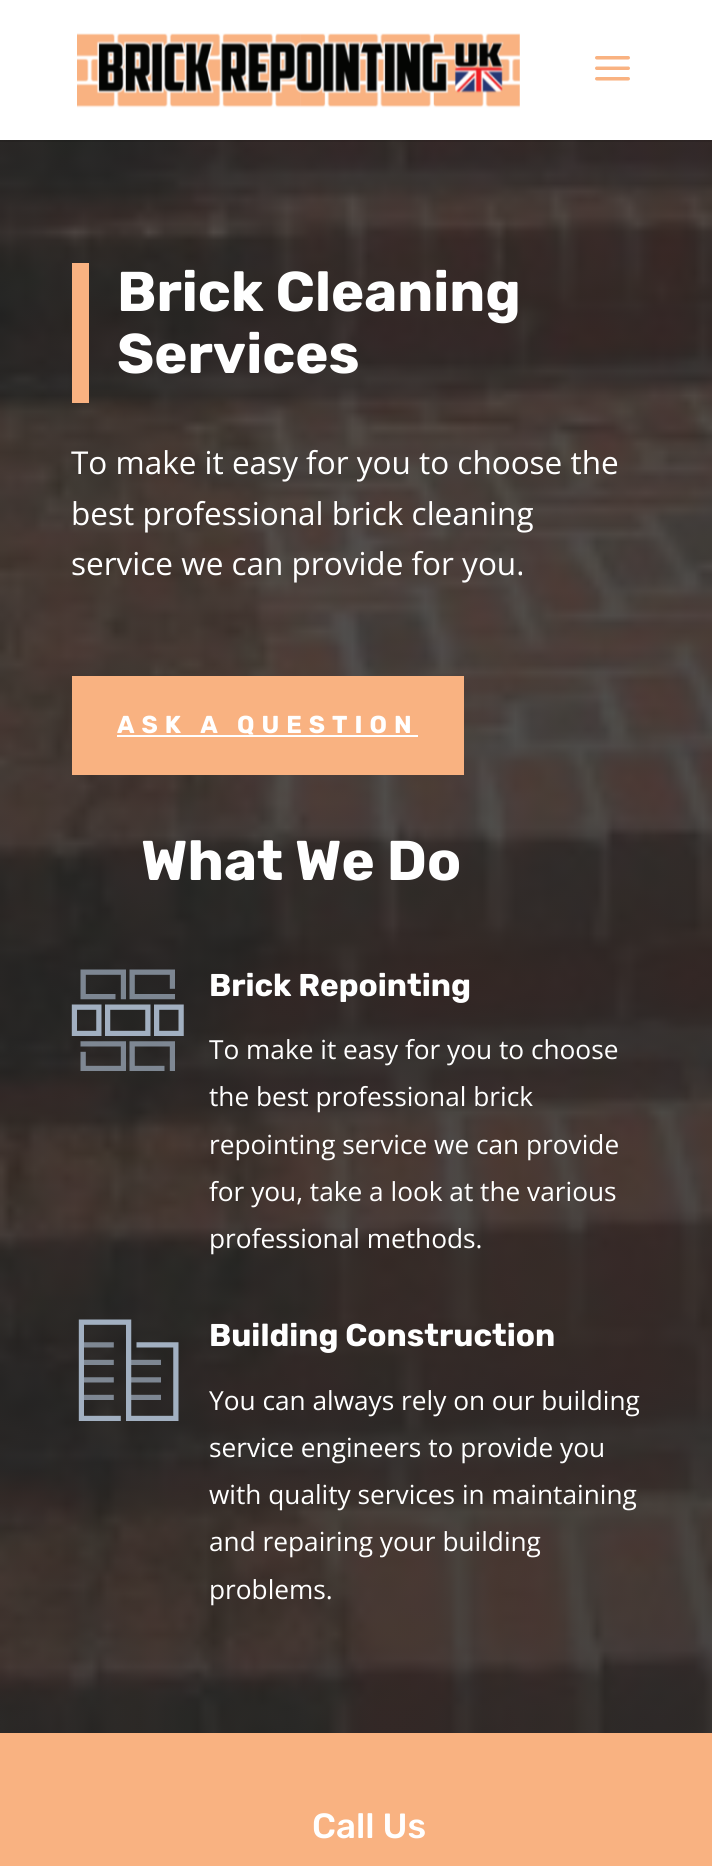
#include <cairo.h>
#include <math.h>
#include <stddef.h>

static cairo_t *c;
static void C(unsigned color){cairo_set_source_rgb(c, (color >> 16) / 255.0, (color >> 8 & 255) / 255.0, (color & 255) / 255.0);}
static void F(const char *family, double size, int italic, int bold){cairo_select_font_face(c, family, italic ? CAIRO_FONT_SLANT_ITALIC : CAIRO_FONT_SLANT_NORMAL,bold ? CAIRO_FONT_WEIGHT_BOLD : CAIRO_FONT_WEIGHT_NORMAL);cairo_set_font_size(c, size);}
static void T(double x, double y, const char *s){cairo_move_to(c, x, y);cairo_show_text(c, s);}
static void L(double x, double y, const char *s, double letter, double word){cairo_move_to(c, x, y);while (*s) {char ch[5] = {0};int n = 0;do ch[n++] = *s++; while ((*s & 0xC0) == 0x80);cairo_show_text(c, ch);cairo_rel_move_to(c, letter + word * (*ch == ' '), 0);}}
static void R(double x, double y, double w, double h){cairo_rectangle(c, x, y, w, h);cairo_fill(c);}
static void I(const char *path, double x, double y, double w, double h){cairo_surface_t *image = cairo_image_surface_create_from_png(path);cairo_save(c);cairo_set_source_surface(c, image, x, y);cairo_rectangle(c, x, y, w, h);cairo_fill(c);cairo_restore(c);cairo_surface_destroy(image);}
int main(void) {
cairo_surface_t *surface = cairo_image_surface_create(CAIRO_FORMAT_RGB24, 712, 1866);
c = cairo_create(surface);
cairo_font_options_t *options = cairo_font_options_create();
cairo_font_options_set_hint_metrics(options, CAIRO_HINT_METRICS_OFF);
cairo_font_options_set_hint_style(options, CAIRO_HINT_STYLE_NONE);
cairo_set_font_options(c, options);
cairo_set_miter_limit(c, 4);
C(0xffffff);
cairo_paint(c);
I("3.png",0,140,712,1593);
cairo_set_source_rgba(c,0,0,0,0.1);
R(0,140,712,2);
I("1.png",77,33,443,75);
I("2.png",595,56,35,25);
C(0xf9b281);
R(72,263,17,140);
F("Rubik",56,0,1);
C(0xffffff);
T(117,311,"Brick Cleaning");
T(117,373,"Services");
F("Open Sans",31.5,0,0);
T(71,474,"To make it easy for you to choose the");
T(71,525,"best professional brick cleaning");
T(71,575,"service we can provide for you.");
C(0xf9b281);
R(72,676,392,99);
F("Rubik",24.5,0,1);
C(0xffffff);
L(117,733,"ASK A QUESTION",7,0);
R(117,735,301,2);
F("Rubik",56,0,1);
T(141,880,"What We Do");
I("4.png",71,969,113,102);
F("Rubik",31.5,0,1);
T(209,996,"Brick Repointing");
F("Open Sans",26.25,0,0);
T(209,1059,"To make it easy for you to choose");
T(209,1106,"the best professional brick");
T(209,1154,"repointing service we can provide");
T(209,1201,"for you, take a look at the various");
T(209,1248,"professional methods.");
I("5.png",78,1319,101,102);
F("Rubik",31.5,0,1);
T(209,1346,"Building Construction");
F("Open Sans",26.25,0,0);
T(209,1410,"You can always rely on our building");
T(209,1457,"service engineers to provide you");
T(209,1504,"with quality services in maintaining");
T(209,1551,"and repairing your building");
T(209,1599,"problems.");
C(0xf9b281);
R(0,1733,712,133);
F("Rubik Medium",35,0,0);
C(0xffffff);
T(312,1838,"Call Us");
cairo_surface_write_to_png(surface, "o.png");
cairo_font_options_destroy(options);
cairo_destroy(c);
cairo_surface_destroy(surface);
return 0;
}
